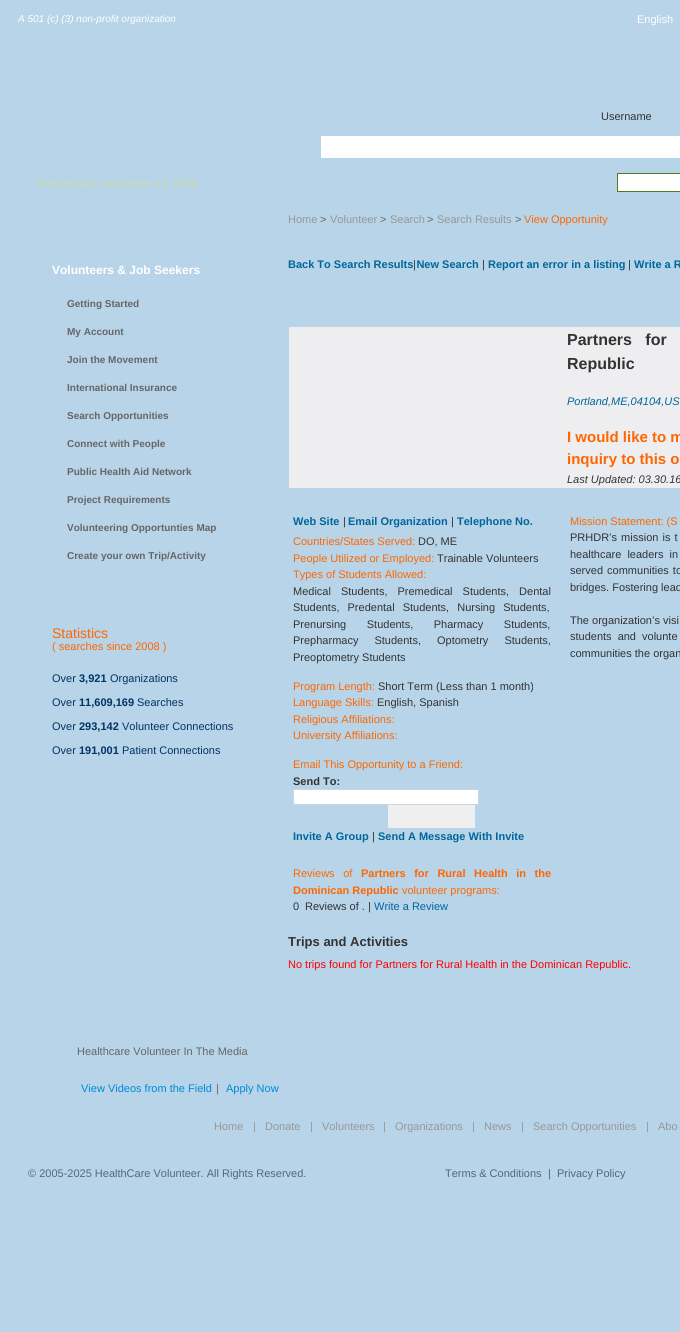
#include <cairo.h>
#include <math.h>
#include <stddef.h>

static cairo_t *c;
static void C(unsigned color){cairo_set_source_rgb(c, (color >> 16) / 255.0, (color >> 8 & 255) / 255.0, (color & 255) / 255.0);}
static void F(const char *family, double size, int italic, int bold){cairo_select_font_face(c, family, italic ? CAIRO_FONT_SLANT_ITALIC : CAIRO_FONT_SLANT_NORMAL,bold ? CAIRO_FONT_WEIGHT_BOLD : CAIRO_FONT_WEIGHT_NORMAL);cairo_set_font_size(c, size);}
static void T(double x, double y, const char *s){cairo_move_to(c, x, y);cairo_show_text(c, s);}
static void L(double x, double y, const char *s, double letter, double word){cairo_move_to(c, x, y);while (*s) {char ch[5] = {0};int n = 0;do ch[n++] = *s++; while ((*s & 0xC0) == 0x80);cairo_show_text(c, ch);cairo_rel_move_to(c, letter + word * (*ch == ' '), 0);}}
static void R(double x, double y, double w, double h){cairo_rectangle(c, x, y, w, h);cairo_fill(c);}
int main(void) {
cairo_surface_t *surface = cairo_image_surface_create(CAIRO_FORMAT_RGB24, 680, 1332);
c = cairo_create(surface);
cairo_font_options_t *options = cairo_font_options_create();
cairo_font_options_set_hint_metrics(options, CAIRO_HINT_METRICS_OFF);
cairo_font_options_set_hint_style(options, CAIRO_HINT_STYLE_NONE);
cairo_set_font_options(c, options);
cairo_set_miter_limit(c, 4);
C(0xb8d4e8);
cairo_paint(c);
F("Liberation Sans",10,1,0);
C(0xffffff);
T(18,22,"A 501 (c) (3) non-profit organization");
F("Liberation Sans",11,0,0);
T(637,23,"English");
C(0x333333);
T(601,120,"Username");
C(0xffffff);
R(321,136,359,22);
C(0xcbdcab);
T(37,187,"Wednesday, November 12, 2025");
C(0xffffff);
R(618,174,62,17);
C(0x4c7c1c);
R(617,173,63,1);
R(617,191,63,1);
R(617,173,1,19);
C(0x979797);
T(288,223,"Home");
C(0x666666);
T(320,223,">");
C(0x979797);
T(330,223,"Volunteer");
C(0x666666);
T(380,223,">");
C(0x979797);
T(390,223,"Search");
C(0x666666);
T(427,223,">");
C(0x979797);
T(437,223,"Search Results");
C(0x666666);
T(515,223,">");
C(0xff6600);
T(524,223,"View Opportunity");
F("Liberation Sans",12,0,1);
C(0xffffff);
T(52,274,"Volunteers & Job Seekers");
F("Liberation Sans",10,0,1);
C(0x666666);
T(67,307,"Getting Started");
T(67,335,"My Account");
T(67,363,"Join the Movement");
T(67,391,"International Insurance");
T(67,419,"Search Opportunities");
T(67,447,"Connect with People");
T(67,475,"Public Health Aid Network");
T(67,503,"Project Requirements");
T(67,531,"Volunteering Opportunties Map");
T(67,559,"Create your own Trip/Activity");
F("Liberation Sans",14,0,0);
C(0xff6600);
T(52,638,"Statistics");
F("Liberation Sans",11,0,0);
T(52,650,"( searches since 2008 )");
C(0x003366);
T(52,682,"Over");
F("Liberation Sans",11,0,1);
T(79,682,"3,921");
F("Liberation Sans",11,0,0);
T(110,682,"Organizations");
T(52,706,"Over");
F("Liberation Sans",11,0,1);
T(79,706,"11,609,169");
F("Liberation Sans",11,0,0);
T(137,706,"Searches");
T(52,730,"Over");
F("Liberation Sans",11,0,1);
T(79,730,"293,142");
F("Liberation Sans",11,0,0);
T(122,730,"Volunteer Connections");
T(52,754,"Over");
F("Liberation Sans",11,0,1);
T(79,754,"191,001");
F("Liberation Sans",11,0,0);
T(122,754,"Patient Connections");
F("Liberation Sans",11,0,1);
C(0x006699);
T(288,268,"Back To Search Results New Search");
F("Liberation Sans",11,0,0);
C(0x333333);
T(413,268,"|");
T(482,268,"|");
F("Liberation Sans",11,0,1);
C(0x006699);
T(488,268,"Report an error in a listing");
F("Liberation Sans",11,0,0);
C(0x333333);
T(628,268,"|");
F("Liberation Sans",11,0,1);
C(0x006699);
T(634,268,"Write a R");
C(0xeeeef1);
R(289,327,391,161);
F("Liberation Sans",16,0,1);
C(0x333333);
L(567,345,"Partners for",0,9);
T(567,369,"Republic");
F("Liberation Sans",11,1,0);
C(0x006699);
T(567,405,"Portland,ME,04104,US");
F("Liberation Sans",15,0,1);
C(0xff6600);
T(567,442,"I would like to m");
T(567,464,"inquiry to this o");
F("Liberation Sans",11,1,0);
C(0x333333);
T(567,483,"Last Updated: 03.30.16");
F("Liberation Sans",11,0,1);
C(0x006699);
T(293,525,"Web Site");
F("Liberation Sans",11,0,0);
C(0x333333);
T(343,525,"|");
F("Liberation Sans",11,0,1);
C(0x006699);
T(348,525,"Email Organization");
F("Liberation Sans",11,0,0);
C(0x333333);
T(451,525,"|");
F("Liberation Sans",11,0,1);
C(0x006699);
T(457,525,"Telephone No.");
F("Liberation Sans",11,0,0);
C(0xff6600);
T(293,545,"Countries/States Served:");
C(0x333333);
T(418,545,"DO, ME");
C(0xff6600);
T(293,562,"People Utilized or Employed:");
C(0x333333);
T(437,562,"Trainable Volunteers");
C(0xff6600);
T(293,578,"Types of Students Allowed:");
C(0x333333);
L(293,595,"Medical Students, Premedical Students, Dental",0,7);
L(293,611,"Students, Predental Students, Nursing Students,",0,5);
L(293,628,"Prenursing Students, Pharmacy Students,",0,17.5);
L(293,644,"Prepharmacy Students, Optometry Students,",0,13);
T(293,661,"Preoptometry Students");
C(0xff6600);
T(293,690,"Program Length:");
C(0x333333);
T(378,690,"Short Term (Less than 1 month)");
C(0xff6600);
T(293,706,"Language Skills:");
C(0x333333);
T(377,706,"English, Spanish");
C(0xff6600);
T(293,723,"Religious Affiliations:");
T(293,739,"University Affiliations:");
T(293,768,"Email This Opportunity to a Friend:");
F("Liberation Sans",11,0,1);
C(0x333333);
T(293,785,"Send To:");
C(0xffffff);
cairo_rectangle(c,293.5,789.5,185,15);
cairo_fill_preserve(c);
C(0xcbd6e2);
cairo_set_line_width(c,1);
cairo_stroke(c);
C(0xefefef);
R(388,805,87,23);
C(0x006699);
T(293,840,"Invite A Group");
F("Liberation Sans",11,0,0);
C(0x333333);
T(372,840,"|");
F("Liberation Sans",11,0,1);
C(0x006699);
T(378,840,"Send A Message With Invite");
F("Liberation Sans",11,0,0);
C(0xff6600);
L(293,877,"Reviews of",0,5.5);
F("Liberation Sans",11,0,1);
L(361,877,"Partners for Rural Health in the",0,5.5);
T(293,894,"Dominican Republic");
F("Liberation Sans",11,0,0);
T(402,894,"volunteer programs:");
C(0x333333);
T(293,910,"0");
T(305,910,"Reviews of . |");
C(0x006699);
T(374,910,"Write a Review");
C(0xff6600);
T(570,525,"Mission Statement: (S");
C(0x333333);
L(570,541,"PRHDR’s mission is t",0,1);
L(570,558,"healthcare leaders in",0,3);
L(570,574,"served communities to",0,1);
T(570,591,"bridges. Fostering lead");
T(570,624,"The organization’s visi");
L(570,640,"students and volunte",0,3);
T(570,657,"communities the organ");
F("Liberation Sans",13,0,1);
T(288,946,"Trips and Activities");
F("Liberation Sans",11,0,0);
C(0xff0000);
T(288,968,"No trips found for Partners for Rural Health in the Dominican Republic.");
C(0x666666);
T(77,1055,"Healthcare Volunteer In The Media");
C(0x0089d8);
T(81,1092,"View Videos from the Field");
C(0x666666);
T(216,1092,"|");
C(0x0089d8);
T(226,1092,"Apply Now");
C(0x979797);
T(214,1130,"Home");
T(253,1130,"|");
T(265,1130,"Donate");
T(310,1130,"|");
T(322,1130,"Volunteers");
T(383,1130,"|");
T(395,1130,"Organizations");
T(472,1130,"|");
T(484,1130,"News");
T(521,1130,"|");
T(533,1130,"Search Opportunities");
T(646,1130,"|");
T(658,1130,"Abo");
C(0x54667b);
T(28,1177,"© 2005-2025 HealthCare Volunteer. All Rights Reserved.");
T(445,1177,"Terms & Conditions");
T(548,1177,"|");
T(557,1177,"Privacy Policy");
cairo_surface_write_to_png(surface, "o.png");
cairo_font_options_destroy(options);
cairo_destroy(c);
cairo_surface_destroy(surface);
return 0;
}
